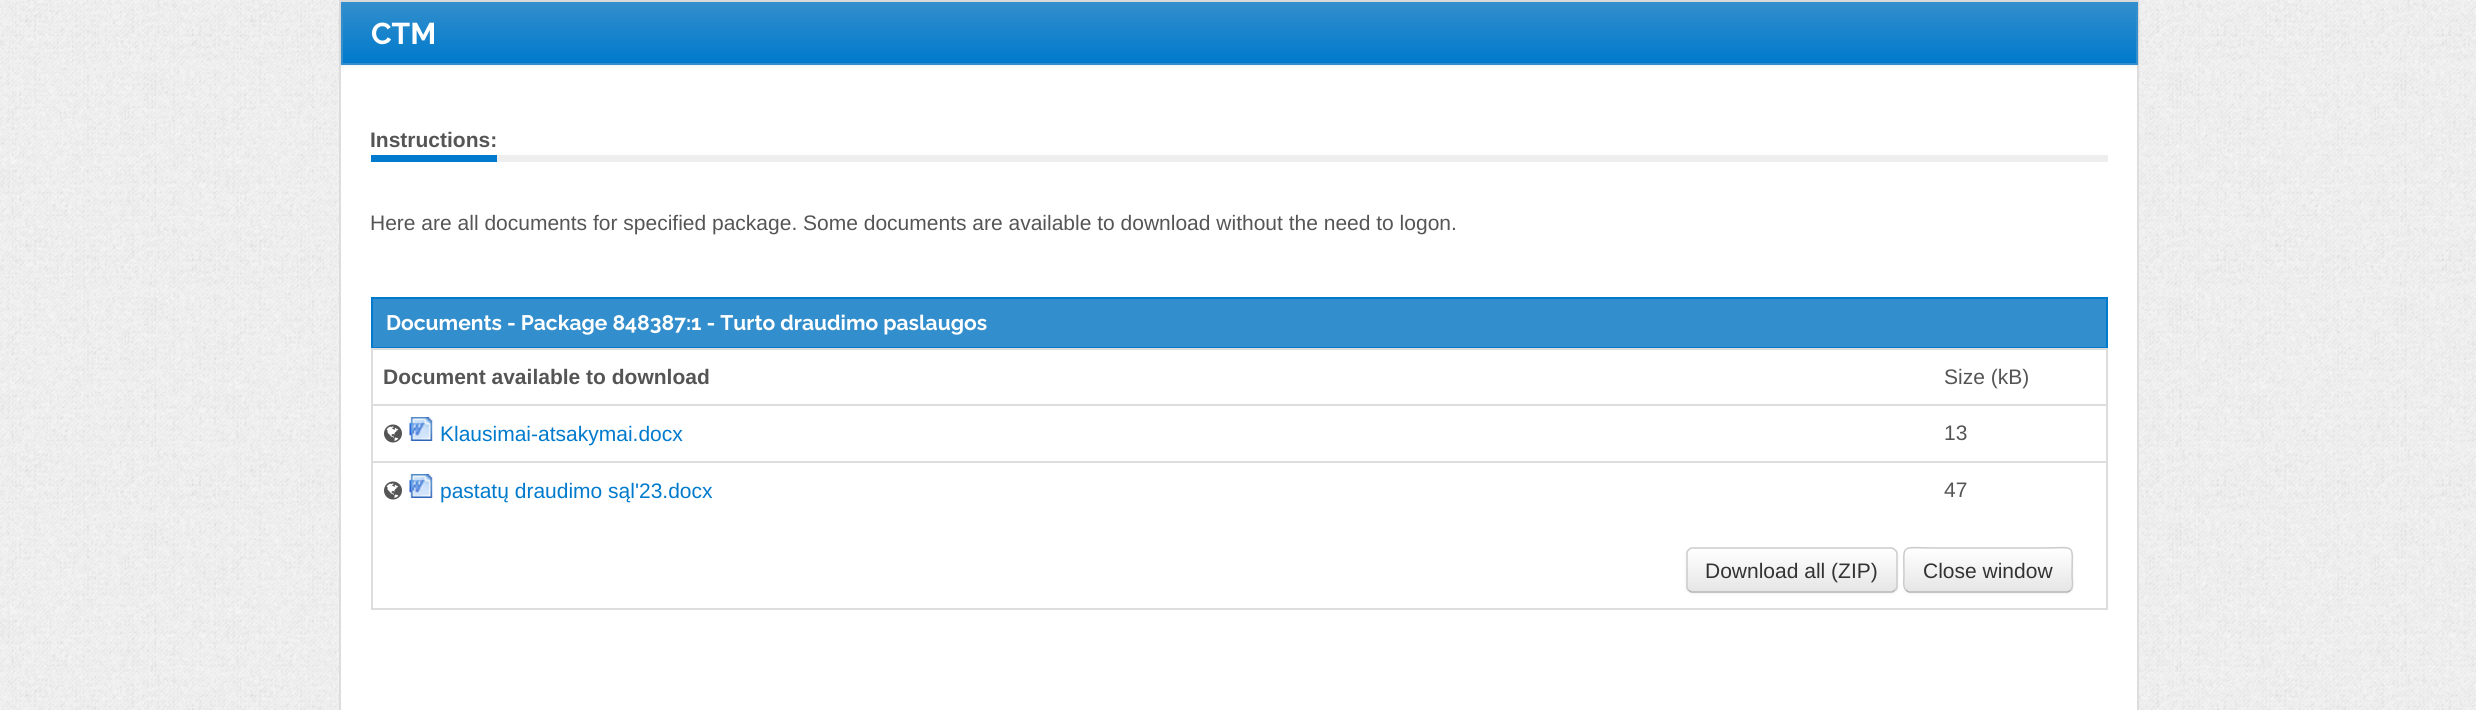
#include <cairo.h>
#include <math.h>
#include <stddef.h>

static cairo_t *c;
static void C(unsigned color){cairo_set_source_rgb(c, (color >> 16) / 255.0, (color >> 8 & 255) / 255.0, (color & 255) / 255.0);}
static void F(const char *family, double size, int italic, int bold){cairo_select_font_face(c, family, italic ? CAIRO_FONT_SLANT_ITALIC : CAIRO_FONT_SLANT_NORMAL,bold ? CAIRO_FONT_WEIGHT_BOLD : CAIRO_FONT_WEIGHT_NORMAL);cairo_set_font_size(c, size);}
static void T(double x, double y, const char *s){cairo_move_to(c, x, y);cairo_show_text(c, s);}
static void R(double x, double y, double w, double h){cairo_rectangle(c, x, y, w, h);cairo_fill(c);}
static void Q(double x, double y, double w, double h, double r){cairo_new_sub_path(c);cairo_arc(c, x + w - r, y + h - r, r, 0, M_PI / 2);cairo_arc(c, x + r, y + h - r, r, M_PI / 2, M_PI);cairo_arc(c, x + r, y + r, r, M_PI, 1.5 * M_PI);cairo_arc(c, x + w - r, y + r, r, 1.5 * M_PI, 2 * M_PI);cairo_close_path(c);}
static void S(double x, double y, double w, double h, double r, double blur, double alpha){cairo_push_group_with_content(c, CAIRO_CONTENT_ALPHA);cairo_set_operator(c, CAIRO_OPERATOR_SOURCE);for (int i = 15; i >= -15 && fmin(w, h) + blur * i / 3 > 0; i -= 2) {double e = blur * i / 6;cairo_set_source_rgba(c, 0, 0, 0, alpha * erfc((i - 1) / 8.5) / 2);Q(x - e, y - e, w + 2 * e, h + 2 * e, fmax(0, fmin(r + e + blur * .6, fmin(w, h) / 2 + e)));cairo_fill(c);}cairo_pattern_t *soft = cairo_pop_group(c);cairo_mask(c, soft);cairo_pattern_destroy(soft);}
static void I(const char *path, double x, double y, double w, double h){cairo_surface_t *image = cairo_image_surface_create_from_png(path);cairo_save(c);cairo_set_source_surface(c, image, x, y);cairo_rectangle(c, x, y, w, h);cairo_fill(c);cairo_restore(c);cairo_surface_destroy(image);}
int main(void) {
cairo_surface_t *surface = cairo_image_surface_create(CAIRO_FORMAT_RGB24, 2476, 710);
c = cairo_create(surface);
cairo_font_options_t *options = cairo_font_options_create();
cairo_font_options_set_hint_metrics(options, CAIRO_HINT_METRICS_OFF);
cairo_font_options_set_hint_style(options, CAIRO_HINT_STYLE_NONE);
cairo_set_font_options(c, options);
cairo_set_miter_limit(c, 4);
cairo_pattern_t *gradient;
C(0xffffff);
cairo_paint(c);
I("1.png",0,0,2476,710);
C(0xffffff);
R(341,65,1796,645);
cairo_rectangle(c,340,1,1798,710);
C(0xdddddd);
cairo_stroke(c);
C(0x000000);
S(341,3,1797,63,0,3,.07);
gradient = cairo_pattern_create_linear(1239,3,1239,63);
cairo_pattern_add_color_stop_rgba(gradient,0,0.196,0.557,0.8,1);
cairo_pattern_add_color_stop_rgba(gradient,1,0,0.478,0.8,1);
cairo_set_source(c,gradient);
cairo_pattern_destroy(gradient);
R(343,4,1793,59);
cairo_rectangle(c,342,3,1795,61);
C(0x328ecc);
cairo_stroke(c);
F("Raleway",30,0,1);
C(0xffffff);
T(371,44,"CTM");
C(0xeeeeee);
R(497,155,1611,7);
F("Liberation Sans",21,0,1);
C(0x555555);
T(370,147,"Instructions:");
C(0x007acc);
R(371,155,126,7);
F("Liberation Sans",21,0,0);
C(0x555555);
T(370,230,"Here are all documents for specified package. Some documents are available to download without the need to logon.");
C(0x328ecc);
R(373,299,1733,48);
C(0x007acc);
R(371,297,1737,2);
R(2106,297,2,51);
R(371,347,1737,1);
R(371,297,2,51);
F("Raleway",21,0,1);
C(0xffffff);
T(386,330,"Documents - Package 848387:1 - Turto draudimo paslaugos");
C(0xdddddd);
R(2106,348,2,261);
R(371,348,2,261);
F("Liberation Sans",21,0,1);
C(0x555555);
T(383,384,"Document available to download");
C(0xdddddd);
R(371,348,1737,2);
F("Liberation Sans",21,0,0);
C(0x555555);
T(1944,384,"Size (kB)");
I("2.png",384,424,18,19);
I("3.png",409,417,24,24);
C(0x007acc);
T(440,441,"Klausimai-atsakymai.docx");
C(0xdddddd);
R(371,404,1737,2);
C(0x555555);
T(1944,440,"13");
I("2.png",384,481,18,19);
I("3.png",409,474,24,24);
C(0x007acc);
T(440,498,"pastatų draudimo sąl'23.docx");
C(0xdddddd);
R(371,461,1737,2);
C(0x555555);
T(1944,497,"47");
C(0xdddddd);
R(371,608,1737,2);
C(0x000000);
S(1686,549,212,45,6,1.5,.05);
C(0xf5f5f5);
Q(1686,548,212,45,6);
cairo_fill(c);
cairo_save(c);
Q(1686,548,212,45,6);
cairo_clip(c);
gradient = cairo_pattern_create_linear(1792,549,1792,591);
cairo_pattern_add_color_stop_rgba(gradient,0,1,1,1,1);
cairo_pattern_add_color_stop_rgba(gradient,1,0.902,0.902,0.902,1);
cairo_set_source(c,gradient);
cairo_pattern_destroy(gradient);
R(1686,549,212,42);
cairo_restore(c);
cairo_new_path(c);
cairo_move_to(c,1895,590);
cairo_curve_to(c,1894,591,1893,592,1891.5,592);
cairo_line_to(c,1692,592);
cairo_curve_to(c,1690.5,592,1689.5,591,1688.5,590);
C(0xb3b3b3);
cairo_set_line_width(c,1.5);
cairo_stroke(c);
cairo_new_path(c);
cairo_move_to(c,1688.5,590);
cairo_curve_to(c,1687.5,589,1687,588,1687,586.5);
cairo_line_to(c,1687,553.5);
cairo_curve_to(c,1687,552,1687.5,551,1688.5,550);
cairo_curve_to(c,1689.5,549,1690.5,548,1692,548);
cairo_line_to(c,1891.5,548);
cairo_curve_to(c,1893,548,1894,549,1895,550);
cairo_curve_to(c,1896,551,1897,552,1897,553.5);
cairo_line_to(c,1897,586.5);
cairo_curve_to(c,1897,588,1896,589,1895,590);
C(0xcccccc);
cairo_stroke(c);
C(0x333333);
T(1705,578,"Download all (ZIP)");
C(0x000000);
S(1904,549,169,45,6,1.5,.05);
C(0xf5f5f5);
Q(1904,548,169,45,6);
cairo_fill(c);
cairo_save(c);
Q(1904,548,169,45,6);
cairo_clip(c);
gradient = cairo_pattern_create_linear(1988,549,1988,591);
cairo_pattern_add_color_stop_rgba(gradient,0,1,1,1,1);
cairo_pattern_add_color_stop_rgba(gradient,1,0.902,0.902,0.902,1);
cairo_set_source(c,gradient);
cairo_pattern_destroy(gradient);
R(1904,549,169,42);
cairo_restore(c);
cairo_new_path(c);
cairo_move_to(c,2070.5,590);
cairo_curve_to(c,2069.5,591,2068.5,592,2067,592);
cairo_line_to(c,1909.5,592);
cairo_curve_to(c,1908,592,1907,591,1906,590);
C(0xb3b3b3);
cairo_stroke(c);
cairo_new_path(c);
cairo_move_to(c,1906,590);
cairo_curve_to(c,1902.5,587,1904,579,1904,575.5);
cairo_curve_to(c,1904,542,1899,548,1936,548);
cairo_line_to(c,2041,548);
cairo_curve_to(c,2077.5,548,2072,542,2072,575.5);
cairo_curve_to(c,2072,579,2074,587,2070.5,590);
C(0xcccccc);
cairo_stroke(c);
C(0x333333);
T(1923,578,"Close window");
cairo_surface_write_to_png(surface, "o.png");
cairo_font_options_destroy(options);
cairo_destroy(c);
cairo_surface_destroy(surface);
return 0;
}
